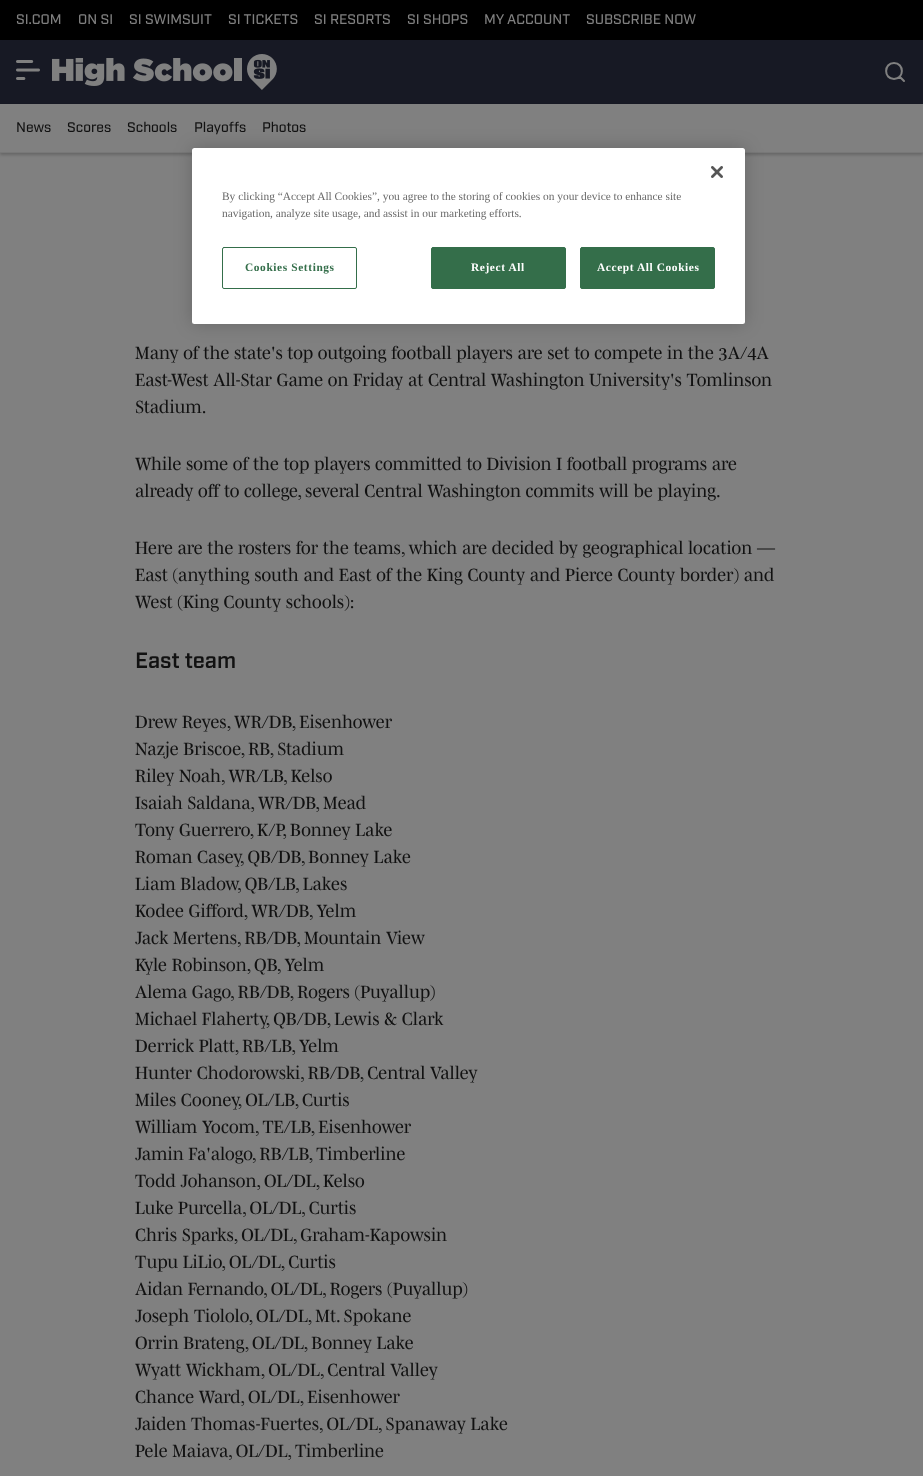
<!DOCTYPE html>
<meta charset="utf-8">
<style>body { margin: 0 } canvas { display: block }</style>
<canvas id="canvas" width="923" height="1476"></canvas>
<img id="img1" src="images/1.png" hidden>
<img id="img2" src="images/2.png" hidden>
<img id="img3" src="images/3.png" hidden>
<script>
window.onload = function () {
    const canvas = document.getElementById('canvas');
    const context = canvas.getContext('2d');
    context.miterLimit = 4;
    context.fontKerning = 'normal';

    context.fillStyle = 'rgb(128, 128, 128)';
    context.fillRect(0, 0, 923, 1476);
    context.fillStyle = 'rgb(0, 0, 0)';
    context.fillRect(0, 0, 923, 40);
    context.fillStyle = 'rgb(23, 25, 36)';
    context.fillRect(0, 40, 923, 64);
    context.drawImage(document.getElementById('img1'), 16, 60, 24, 20);
    context.drawImage(document.getElementById('img2'), 52, 54, 225, 36);
    context.beginPath();
    context.moveTo(894, 79);
    context.bezierCurveTo(904.5, 79, 904.5, 63, 894, 63);
    context.bezierCurveTo(883.5, 63, 883.5, 79, 894, 79);
    context.closePath();
    context.moveTo(904, 81);
    context.lineTo(899.5, 76.5);
    context.strokeStyle = 'rgb(128, 128, 128)';
    context.lineWidth = 2;
    context.lineCap = 'round';
    context.lineJoin = 'round';
    context.stroke();
    context.fillStyle = 'rgba(0, 0, 0, 0.2)';
    context.filter = 'blur(1.5px)';
    context.beginPath();
    context.rect(0, 106, 923, 49);
    context.fill();
    context.filter = 'none';
    context.fillStyle = 'rgb(128, 128, 128)';
    context.fillRect(0, 104, 923, 48);
    context.fillStyle = 'rgb(120, 120, 120)';
    context.fillRect(0, 152, 923, 1);
    context.fillStyle = 'rgba(0, 0, 0, 0.2)';
    context.filter = 'blur(9px)';
    context.beginPath();
    context.roundRect(192, 148, 553, 176, 2.5);
    context.fill();
    context.filter = 'none';
    context.fillStyle = 'rgb(255, 255, 255)';
    context.beginPath();
    context.roundRect(192, 148, 553, 176, 2.5);
    context.fill();
    context.drawImage(document.getElementById('img3'), 711, 166, 12, 12);
    context.beginPath();
    context.roundRect(222.5, 247.5, 134, 41, 1.5);
    context.strokeStyle = 'rgb(52, 110, 74)';
    context.lineWidth = 1;
    context.lineJoin = 'miter';
    context.stroke();
    context.fillStyle = 'rgb(52, 110, 74)';
    context.beginPath();
    context.roundRect(431.5, 247.5, 134, 41, 1.5);
    context.fill();
    context.stroke();
    context.beginPath();
    context.roundRect(580.5, 247.5, 134, 41, 1.5);
    context.fill();
    context.stroke();
    context.font = '500 14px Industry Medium';
    context.fillStyle = 'rgb(128, 128, 128)';
    context.fillText('SI.COM', 16, 24);
    context.fillText('ON SI', 78, 24);
    context.fillText('SI SWIMSUIT', 129, 24);
    context.fillText('SI TICKETS', 228, 24);
    context.fillText('SI RESORTS', 314, 24);
    context.fillText('SI SHOPS', 407, 24);
    context.fillText('MY ACCOUNT', 484, 24);
    context.fillText('SUBSCRIBE NOW', 586, 24);
    context.fillStyle = 'rgb(17, 17, 17)';
    context.fillText('News', 16, 132);
    context.fillText('Scores', 67, 132);
    context.fillText('Schools', 127, 132);
    context.fillText('Playoffs', 194, 132);
    context.fillText('Photos', 262, 132);
    context.font = '18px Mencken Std';
    context.fillText('Many of the state\'s top outgoing football players are set to compete in the 3A/4A', 135, 359);
    context.fillText('East-West All-Star Game on Friday at Central Washington University\'s Tomlinson', 135, 386);
    context.fillText('Stadium.', 135, 413);
    context.fillText('While some of the top players committed to Division I football programs are', 135, 470);
    context.fillText('already off to college, several Central Washington commits will be playing.', 135, 497);
    context.fillText('Here are the rosters for the teams, which are decided by geographical location —', 135, 554);
    context.fillText('East (anything south and East of the King County and Pierce County border) and', 135, 581);
    context.fillText('West (King County schools):', 135, 608);
    context.font = '600 22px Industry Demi';
    context.fillText('East team', 135, 668);
    context.font = '18px Mencken Std';
    context.fillText('Drew Reyes, WR/DB, Eisenhower', 135, 728);
    context.fillText('Nazje Briscoe, RB, Stadium', 135, 755);
    context.fillText('Riley Noah, WR/LB, Kelso', 135, 782);
    context.fillText('Isaiah Saldana, WR/DB, Mead', 135, 809);
    context.fillText('Tony Guerrero, K/P, Bonney Lake', 135, 836);
    context.fillText('Roman Casey, QB/DB, Bonney Lake', 135, 863);
    context.fillText('Liam Bladow, QB/LB, Lakes', 135, 890);
    context.fillText('Kodee Gifford, WR/DB, Yelm', 135, 917);
    context.fillText('Jack Mertens, RB/DB, Mountain View', 135, 944);
    context.fillText('Kyle Robinson, QB, Yelm', 135, 971);
    context.fillText('Alema Gago, RB/DB, Rogers (Puyallup)', 135, 998);
    context.fillText('Michael Flaherty, QB/DB, Lewis & Clark', 135, 1025);
    context.fillText('Derrick Platt, RB/LB, Yelm', 135, 1052);
    context.fillText('Hunter Chodorowski, RB/DB, Central Valley', 135, 1079);
    context.fillText('Miles Cooney, OL/LB, Curtis', 135, 1106);
    context.fillText('William Yocom, TE/LB, Eisenhower', 135, 1133);
    context.fillText('Jamin Fa\'alogo, RB/LB, Timberline', 135, 1160);
    context.fillText('Todd Johanson, OL/DL, Kelso', 135, 1187);
    context.fillText('Luke Purcella, OL/DL, Curtis', 135, 1214);
    context.fillText('Chris Sparks, OL/DL, Graham-Kapowsin', 135, 1241);
    context.fillText('Tupu LiLio, OL/DL, Curtis', 135, 1268);
    context.fillText('Aidan Fernando, OL/DL, Rogers (Puyallup)', 135, 1295);
    context.fillText('Joseph Tiololo, OL/DL, Mt. Spokane', 135, 1322);
    context.fillText('Orrin Brateng, OL/DL, Bonney Lake', 135, 1349);
    context.fillText('Wyatt Wickham, OL/DL, Central Valley', 135, 1376);
    context.fillText('Chance Ward, OL/DL, Eisenhower', 135, 1403);
    context.fillText('Jaiden Thomas-Fuertes, OL/DL, Spanaway Lake', 135, 1430);
    context.fillText('Pele Maiava, OL/DL, Timberline', 135, 1457);
    context.font = '11.4px Liberation Serif';
    context.fillStyle = 'rgb(105, 105, 105)';
    context.fillText('By clicking “Accept All Cookies”, you agree to the storing of cookies on your device to enhance site', 222, 200);
    context.fillText('navigation, analyze site usage, and assist in our marketing efforts.', 222, 217);
    context.letterSpacing = '0.6px';
    context.font = 'bold 11.4px Liberation Serif';
    context.fillStyle = 'rgb(52, 110, 74)';
    context.fillText('Cookies Settings', 245, 271);
    context.fillStyle = 'rgb(255, 255, 255)';
    context.fillText('Reject All', 471, 271);
    context.fillText('Accept All Cookies', 597, 271);
};
</script>
